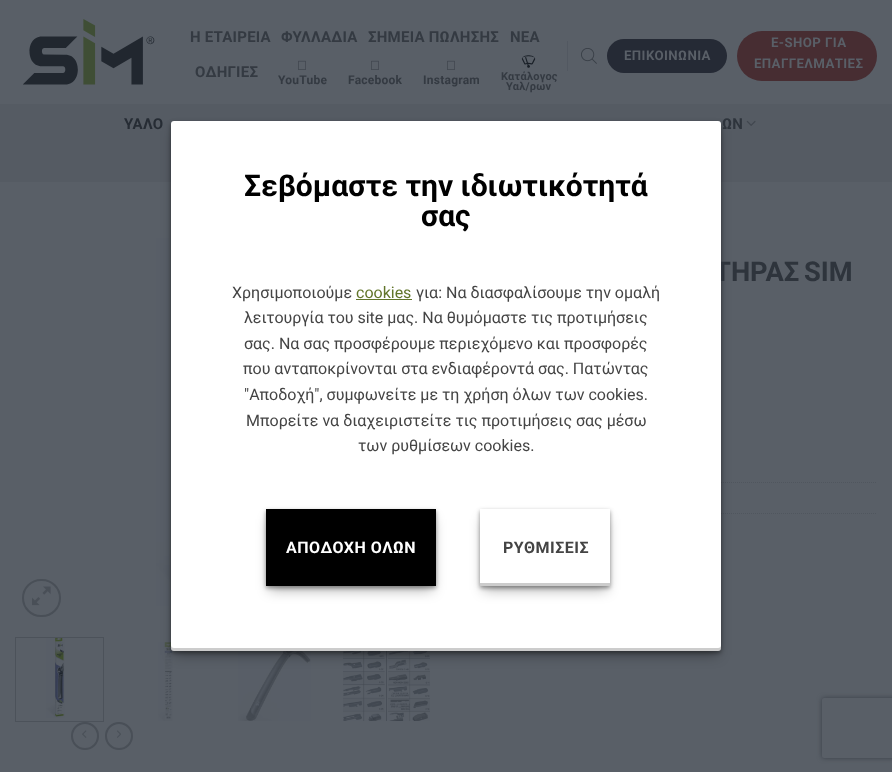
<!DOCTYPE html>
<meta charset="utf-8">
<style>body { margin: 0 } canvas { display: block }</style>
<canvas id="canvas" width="892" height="772"></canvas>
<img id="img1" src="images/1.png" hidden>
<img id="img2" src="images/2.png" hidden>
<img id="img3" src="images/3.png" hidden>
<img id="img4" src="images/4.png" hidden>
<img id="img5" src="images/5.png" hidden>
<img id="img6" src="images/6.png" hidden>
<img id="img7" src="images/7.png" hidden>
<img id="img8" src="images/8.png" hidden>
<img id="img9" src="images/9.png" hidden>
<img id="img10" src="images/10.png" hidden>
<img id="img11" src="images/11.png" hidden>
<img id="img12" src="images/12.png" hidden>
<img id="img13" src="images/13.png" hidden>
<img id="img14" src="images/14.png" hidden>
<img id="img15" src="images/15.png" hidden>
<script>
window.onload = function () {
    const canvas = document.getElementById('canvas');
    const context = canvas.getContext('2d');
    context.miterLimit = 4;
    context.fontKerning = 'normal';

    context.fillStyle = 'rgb(89, 95, 103)';
    context.fillRect(0, 0, 892, 772);
    context.drawImage(document.getElementById('img1'), 23, 19, 132, 66);
    context.drawImage(document.getElementById('img2'), 298, 60, 8, 10);
    context.drawImage(document.getElementById('img2'), 371, 60, 8, 10);
    context.drawImage(document.getElementById('img2'), 447, 60, 8, 10);
    context.drawImage(document.getElementById('img3'), 521, 55, 15, 13);
    context.fillStyle = 'rgb(82, 88, 97)';
    context.fillRect(567, 41, 1, 30);
    context.drawImage(document.getElementById('img4'), 581, 48, 16, 16);
    context.fillStyle = 'rgb(37, 42, 53)';
    context.beginPath();
    context.roundRect(607, 39, 120, 34, 17);
    context.fill();
    context.fillStyle = 'rgb(71, 45, 50)';
    context.beginPath();
    context.roundRect(737, 31, 140, 50, 25);
    context.fill();
    context.fillStyle = 'rgb(85, 91, 99)';
    context.fillRect(0, 104, 892, 78);
    context.drawImage(document.getElementById('img5'), 280, 120, 8, 1);
    context.drawImage(document.getElementById('img6'), 516, 120, 8, 1);
    context.drawImage(document.getElementById('img7'), 746, 120, 10, 6);
    context.beginPath();
    context.roundRect(23, 580, 37, 36, 18);
    context.strokeStyle = 'rgb(73, 79, 87)';
    context.lineWidth = 2;
    context.stroke();
    context.drawImage(document.getElementById('img8'), 32, 586, 19, 20);
    context.drawImage(document.getElementById('img9'), 156, 238, 15, 368);
    context.strokeStyle = 'rgb(76, 82, 90)';
    context.lineWidth = 1;
    context.strokeRect(15.5, 637.5, 88, 84);
    context.drawImage(document.getElementById('img10'), 46, 638, 19, 80);
    context.drawImage(document.getElementById('img11'), 158, 642, 15, 79);
    context.drawImage(document.getElementById('img12'), 238, 651, 73, 70);
    context.drawImage(document.getElementById('img13'), 343, 651, 87, 70);
    context.beginPath();
    context.moveTo(461, 482.5);
    context.lineTo(877, 482.5);
    context.strokeStyle = 'rgb(80, 86, 94)';
    context.setLineDash([1, 1]);
    context.stroke();
    context.beginPath();
    context.moveTo(461, 513.5);
    context.lineTo(877, 513.5);
    context.stroke();
    context.beginPath();
    context.arc(85, 736, 13, 0, 2 * Math.PI);
    context.strokeStyle = 'rgb(73, 79, 87)';
    context.lineWidth = 2;
    context.setLineDash([]);
    context.stroke();
    context.drawImage(document.getElementById('img14'), 82, 730, 5, 8);
    context.beginPath();
    context.arc(119, 736, 13, 0, 2 * Math.PI);
    context.stroke();
    context.drawImage(document.getElementById('img15'), 117, 730, 4, 8);
    context.fillStyle = 'rgba(0, 0, 0, 0.3)';
    context.filter = 'blur(6.5px)';
    context.beginPath();
    context.rect(174, 131, 544, 524);
    context.fill();
    context.filter = 'none';
    context.fillStyle = 'rgba(0, 0, 0, 0.4)';
    context.filter = 'blur(2px)';
    context.beginPath();
    context.roundRect(171, 123, 550, 530, 3);
    context.fill();
    context.filter = 'none';
    context.save();
    context.beginPath();
    context.moveTo(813, 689);
    context.lineTo(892, 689);
    context.lineTo(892, 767);
    context.lineTo(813, 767);
    context.closePath();
    context.moveTo(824, 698);
    context.lineTo(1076, 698);
    context.bezierCurveTo(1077, 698, 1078, 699, 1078, 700);
    context.lineTo(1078, 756);
    context.bezierCurveTo(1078, 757, 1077, 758, 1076, 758);
    context.lineTo(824, 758);
    context.bezierCurveTo(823, 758, 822, 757, 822, 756);
    context.lineTo(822, 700);
    context.bezierCurveTo(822, 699, 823, 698, 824, 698);
    context.closePath();
    context.clip('evenodd');
    context.fillStyle = 'rgb(57, 63, 71)';
    context.filter = 'blur(2.5px)';
    context.beginPath();
    context.roundRect(822, 698, 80, 60, 2);
    context.fill();
    context.filter = 'none';
    context.restore();
    context.letterSpacing = '0.25px';
    context.font = 'bold 15px Roboto';
    context.fillStyle = 'rgb(52, 58, 66)';
    context.fillText('Η ΕΤΑΙΡΕΙΑ', 190, 42);
    context.fillText('ΦΥΛΛΑΔΙΑ', 281, 42);
    context.fillText('ΣΗΜΕΙΑ ΠΩΛΗΣΗΣ', 368, 42);
    context.fillText('ΝΕΑ', 510, 42);
    context.fillText('ΟΔΗΓΙΕΣ', 195, 77);
    context.font = 'bold 12px Roboto';
    context.fillText('YouTube', 278, 84);
    context.fillText('Facebook', 348, 84);
    context.fillText('Instagram', 423, 84);
    context.font = 'bold 11px Roboto';
    context.fillText('Κατάλογος', 501, 80);
    context.fillText('Υαλ/ρων', 506, 90);
    context.letterSpacing = '0.4px';
    context.font = 'bold 13.25px Roboto';
    context.fillStyle = 'rgb(89, 95, 103)';
    context.fillText('ΕΠΙΚΟΙΝΩΝΙΑ', 624, 60);
    context.fillText('E-SHOP ΓΙΑ', 771, 47);
    context.fillText('ΕΠΑΓΓΕΛΜΑΤΙΕΣ', 754, 68);
    context.letterSpacing = '0.25px';
    context.font = 'bold 15px Roboto';
    context.fillStyle = 'rgb(38, 44, 52)';
    context.fillText('ΥΑΛΟ', 124, 129);
    context.fillStyle = 'rgb(46, 52, 60)';
    context.fillText('ΩΝ', 722, 129);
    context.letterSpacing = '0px';
    context.wordSpacing = '-2px';
    context.font = 'bold 27.25px Roboto';
    context.fillText('ΤΗΡΑΣ SIM', 714, 281);
    context.fillStyle = 'rgb(255, 255, 255)';
    context.beginPath();
    context.roundRect(171, 121, 550, 530, 3);
    context.fill();
    context.fillStyle = 'rgba(0, 0, 0, 0.2)';
    context.beginPath();
    context.moveTo(171, 645);
    context.lineTo(171, 648);
    context.bezierCurveTo(171, 650, 172, 651, 174, 651);
    context.lineTo(718, 651);
    context.bezierCurveTo(720, 651, 721, 650, 721, 648);
    context.lineTo(721, 645);
    context.bezierCurveTo(721, 647, 720, 648, 718, 648);
    context.lineTo(174, 648);
    context.bezierCurveTo(172, 648, 171, 647, 171, 645);
    context.closePath();
    context.fill();
    context.wordSpacing = '0px';
    context.font = 'bold 30px Roboto';
    context.fillStyle = 'rgb(0, 0, 0)';
    context.fillText('Σεβόμαστε την ιδιωτικότητά', 244, 196);
    context.fillText('σας', 421, 226);
    context.font = '16px Roboto';
    context.fillStyle = 'rgb(68, 68, 68)';
    context.fillText('Χρησιμοποιούμε', 232, 298);
    context.fillStyle = 'rgb(97, 117, 42)';
    context.fillText('cookies', 356, 298);
    context.fillRect(356, 299, 56, 1);
    context.fillStyle = 'rgb(68, 68, 68)';
    context.fillText('για: Να διασφαλίσουμε την ομαλή', 416, 298);
    context.fillText('λειτουργία του site μας. Να θυμόμαστε τις προτιμήσεις', 244, 323);
    context.fillText('σας. Να σας προσφέρουμε περιεχόμενο και προσφορές', 244, 349);
    context.fillText('που ανταποκρίνονται στα ενδιαφέροντά σας. Πατώντας', 243, 374);
    context.fillText('"Αποδοχή", συμφωνείτε με τη χρήση όλων των cookies.', 244, 400);
    context.fillText('Μπορείτε να διαχειριστείτε τις προτιμήσεις σας μέσω', 246, 426);
    context.fillText('των ρυθμίσεων cookies.', 358, 451);
    context.fillStyle = 'rgba(0, 0, 0, 0.3)';
    context.filter = 'blur(6.5px)';
    context.beginPath();
    context.rect(269, 519, 164, 71);
    context.fill();
    context.filter = 'none';
    context.fillStyle = 'rgba(0, 0, 0, 0.4)';
    context.filter = 'blur(2px)';
    context.beginPath();
    context.rect(266, 511, 170, 77);
    context.fill();
    context.filter = 'none';
    context.fillStyle = 'rgb(0, 0, 0)';
    context.fillRect(266, 509, 170, 77);
    context.letterSpacing = '0.5px';
    context.font = 'bold 16px Roboto';
    context.fillStyle = 'rgb(255, 255, 255)';
    context.fillText('ΑΠΟΔΟΧΗ ΟΛΩΝ', 286, 553);
    context.save();
    context.beginPath();
    context.moveTo(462, 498);
    context.lineTo(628, 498);
    context.lineTo(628, 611);
    context.lineTo(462, 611);
    context.closePath();
    context.moveTo(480, 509);
    context.lineTo(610, 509);
    context.lineTo(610, 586);
    context.lineTo(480, 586);
    context.closePath();
    context.clip('evenodd');
    context.fillStyle = 'rgba(0, 0, 0, 0.3)';
    context.filter = 'blur(6.5px)';
    context.beginPath();
    context.rect(483, 519, 124, 71);
    context.fill();
    context.filter = 'none';
    context.restore();
    context.save();
    context.beginPath();
    context.moveTo(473, 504);
    context.lineTo(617, 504);
    context.lineTo(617, 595);
    context.lineTo(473, 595);
    context.closePath();
    context.moveTo(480, 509);
    context.lineTo(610, 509);
    context.lineTo(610, 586);
    context.lineTo(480, 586);
    context.closePath();
    context.clip('evenodd');
    context.fillStyle = 'rgba(0, 0, 0, 0.4)';
    context.filter = 'blur(2px)';
    context.beginPath();
    context.rect(480, 511, 130, 77);
    context.fill();
    context.filter = 'none';
    context.restore();
    context.fillStyle = 'rgb(204, 204, 204)';
    context.fillRect(480, 583, 130, 3);
    context.fillStyle = 'rgb(68, 68, 68)';
    context.fillText('ΡΥΘΜΙΣΕΙΣ', 503, 553);
};
</script>
